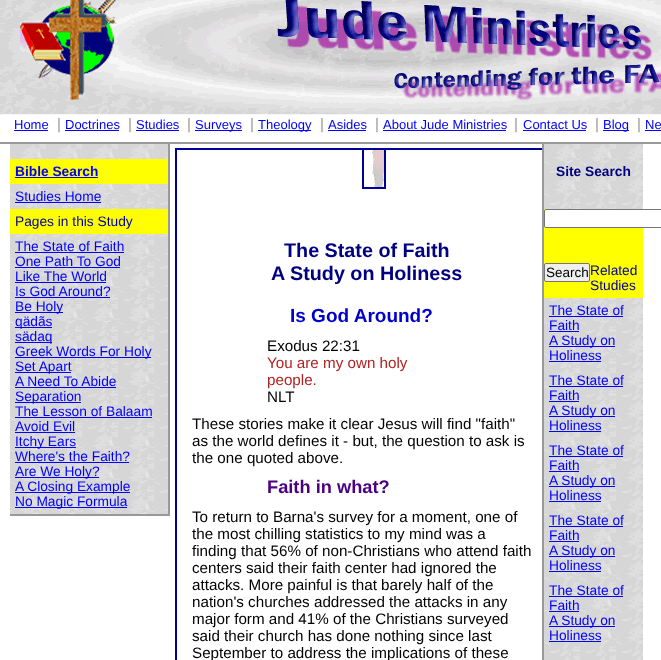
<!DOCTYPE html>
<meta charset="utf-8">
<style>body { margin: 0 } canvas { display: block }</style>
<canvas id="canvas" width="661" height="660"></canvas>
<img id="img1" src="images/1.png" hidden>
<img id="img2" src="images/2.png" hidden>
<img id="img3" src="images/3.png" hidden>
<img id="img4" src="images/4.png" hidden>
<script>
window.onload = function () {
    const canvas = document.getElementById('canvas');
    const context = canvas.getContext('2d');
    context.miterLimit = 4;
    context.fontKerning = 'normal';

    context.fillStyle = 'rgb(255, 255, 255)';
    context.fillRect(0, 0, 661, 660);
    context.fillStyle = 'rgb(153, 153, 153)';
    context.fillRect(0, 142, 661, 2);
    context.drawImage(document.getElementById('img1'), 0, 0, 661, 115);
    context.fillStyle = 'rgb(0, 0, 255)';
    context.fillRect(14, 130, 34, 1);
    context.fillRect(65, 130, 54, 1);
    context.fillRect(136, 130, 43, 1);
    context.fillRect(195, 130, 47, 1);
    context.fillRect(258, 130, 53, 1);
    context.fillRect(328, 130, 38, 1);
    context.fillRect(383, 130, 123, 1);
    context.fillRect(523, 130, 63, 1);
    context.fillRect(603, 130, 26, 1);
    context.fillRect(645, 130, 16, 1);
    context.drawImage(document.getElementById('img2'), 10, 144, 158, 370);
    context.fillStyle = 'rgb(153, 153, 153)';
    context.fillRect(168, 144, 2, 372);
    context.fillRect(10, 514, 160, 2);
    context.fillStyle = 'rgb(255, 255, 0)';
    context.fillRect(10, 159, 158, 25);
    context.fillStyle = 'rgb(0, 0, 255)';
    context.fillRect(15, 177, 83, 1);
    context.fillRect(15, 202, 86, 1);
    context.fillStyle = 'rgb(255, 255, 0)';
    context.fillRect(10, 209, 158, 25);
    context.fillStyle = 'rgb(0, 0, 255)';
    context.fillRect(15, 252, 109, 1);
    context.fillRect(15, 267, 105, 1);
    context.fillRect(15, 282, 91, 1);
    context.fillRect(15, 297, 95, 1);
    context.fillRect(15, 312, 48, 1);
    context.fillRect(15, 327, 30, 1);
    context.fillRect(45, 327, 7, 1);
    context.fillRect(15, 342, 37, 1);
    context.fillRect(15, 357, 136, 1);
    context.fillRect(15, 372, 56, 1);
    context.fillRect(15, 387, 101, 1);
    context.fillRect(15, 402, 66, 1);
    context.fillRect(15, 417, 137, 1);
    context.fillRect(15, 432, 60, 1);
    context.fillRect(15, 447, 61, 1);
    context.fillRect(15, 462, 114, 1);
    context.fillRect(15, 477, 84, 1);
    context.fillRect(15, 492, 115, 1);
    context.fillRect(15, 507, 112, 1);
    context.strokeStyle = 'rgb(0, 0, 153)';
    context.lineWidth = 2;
    context.strokeRect(176, 149, 372, 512);
    context.drawImage(document.getElementById('img3'), 371, 150, 13, 37);
    context.strokeRect(363, 149, 22, 39);
    context.drawImage(document.getElementById('img4'), 544, 144, 99, 516);
    context.fillStyle = 'rgb(153, 153, 153)';
    context.fillRect(542, 144, 2, 516);
    context.fillStyle = 'rgb(255, 255, 0)';
    context.fillRect(544, 209, 99, 89);
    context.fillStyle = 'rgb(255, 255, 255)';
    context.beginPath();
    context.roundRect(544.5, 209.5, 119, 18, 1.5);
    context.fill();
    context.strokeStyle = 'rgb(118, 118, 118)';
    context.lineWidth = 1;
    context.stroke();
    context.fillStyle = 'rgb(239, 239, 239)';
    context.beginPath();
    context.roundRect(544.5, 263.5, 45, 18, 1.5);
    context.fill();
    context.stroke();
    context.fillStyle = 'rgb(0, 0, 255)';
    context.fillRect(549, 316, 74, 1);
    context.fillRect(549, 331, 30, 1);
    context.fillRect(549, 346, 66, 1);
    context.fillRect(549, 361, 52, 1);
    context.fillRect(549, 386, 74, 1);
    context.fillRect(549, 401, 30, 1);
    context.fillRect(549, 416, 66, 1);
    context.fillRect(549, 431, 52, 1);
    context.fillRect(549, 456, 74, 1);
    context.fillRect(549, 471, 30, 1);
    context.fillRect(549, 486, 66, 1);
    context.fillRect(549, 501, 52, 1);
    context.fillRect(549, 526, 74, 1);
    context.fillRect(549, 541, 30, 1);
    context.fillRect(549, 556, 66, 1);
    context.fillRect(549, 571, 52, 1);
    context.fillRect(549, 596, 74, 1);
    context.fillRect(549, 611, 30, 1);
    context.fillRect(549, 626, 66, 1);
    context.fillRect(549, 641, 52, 1);
    context.font = '13px Liberation Sans';
    context.fillText('Home', 14, 129);
    context.font = '15.2px Liberation Sans';
    context.fillStyle = 'rgb(153, 153, 153)';
    context.fillText('|', 57, 129);
    context.font = '13px Liberation Sans';
    context.fillStyle = 'rgb(0, 0, 255)';
    context.fillText('Doctrines', 65, 129);
    context.font = '15.2px Liberation Sans';
    context.fillStyle = 'rgb(153, 153, 153)';
    context.fillText('|', 128, 129);
    context.font = '13px Liberation Sans';
    context.fillStyle = 'rgb(0, 0, 255)';
    context.fillText('Studies', 136, 129);
    context.font = '15.2px Liberation Sans';
    context.fillStyle = 'rgb(153, 153, 153)';
    context.fillText('|', 187, 129);
    context.font = '13px Liberation Sans';
    context.fillStyle = 'rgb(0, 0, 255)';
    context.fillText('Surveys', 195, 129);
    context.font = '15.2px Liberation Sans';
    context.fillStyle = 'rgb(153, 153, 153)';
    context.fillText('|', 250, 129);
    context.font = '13px Liberation Sans';
    context.fillStyle = 'rgb(0, 0, 255)';
    context.fillText('Theology', 258, 129);
    context.font = '15.2px Liberation Sans';
    context.fillStyle = 'rgb(153, 153, 153)';
    context.fillText('|', 320, 129);
    context.font = '13px Liberation Sans';
    context.fillStyle = 'rgb(0, 0, 255)';
    context.fillText('Asides', 328, 129);
    context.font = '15.2px Liberation Sans';
    context.fillStyle = 'rgb(153, 153, 153)';
    context.fillText('|', 375, 129);
    context.font = '13px Liberation Sans';
    context.fillStyle = 'rgb(0, 0, 255)';
    context.fillText('About Jude Ministries', 383, 129);
    context.font = '15.2px Liberation Sans';
    context.fillStyle = 'rgb(153, 153, 153)';
    context.fillText('|', 514, 129);
    context.font = '13px Liberation Sans';
    context.fillStyle = 'rgb(0, 0, 255)';
    context.fillText('Contact Us', 523, 129);
    context.font = '15.2px Liberation Sans';
    context.fillStyle = 'rgb(153, 153, 153)';
    context.fillText('|', 595, 129);
    context.font = '13px Liberation Sans';
    context.fillStyle = 'rgb(0, 0, 255)';
    context.fillText('Blog', 603, 129);
    context.font = '15.2px Liberation Sans';
    context.fillStyle = 'rgb(153, 153, 153)';
    context.fillText('|', 637, 129);
    context.font = '13px Liberation Sans';
    context.fillStyle = 'rgb(0, 0, 255)';
    context.fillText('Ne', 645, 129);
    context.font = 'bold 13.75px Liberation Sans';
    context.fillText('Bible Search', 15, 176);
    context.font = '13.75px Liberation Sans';
    context.fillText('Studies Home', 15, 201);
    context.fillStyle = 'rgb(0, 0, 153)';
    context.fillText('Pages in this Study', 15, 226);
    context.fillStyle = 'rgb(0, 0, 255)';
    context.fillText('The State of Faith', 15, 251);
    context.fillText('One Path To God', 15, 266);
    context.fillText('Like The World', 15, 281);
    context.fillText('Is God Around?', 15, 296);
    context.fillText('Be Holy', 15, 311);
    context.fillText('qädãs', 15, 326);
    context.fillText('sädaq', 15, 341);
    context.fillText('Greek Words For Holy', 15, 356);
    context.fillText('Set Apart', 15, 371);
    context.fillText('A Need To Abide', 15, 386);
    context.fillText('Separation', 15, 401);
    context.fillText('The Lesson of Balaam', 15, 416);
    context.fillText('Avoid Evil', 15, 431);
    context.fillText('Itchy Ears', 15, 446);
    context.fillText('Where\'s the Faith?', 15, 461);
    context.fillText('Are We Holy?', 15, 476);
    context.fillText('A Closing Example', 15, 491);
    context.fillText('No Magic Formula', 15, 506);
    context.font = 'bold 19.75px Liberation Sans';
    context.fillStyle = 'rgb(0, 0, 128)';
    context.fillText('The State of Faith', 284, 257);
    context.fillText('A Study on Holiness', 271, 280);
    context.font = 'bold 19px Liberation Sans';
    context.fillStyle = 'rgb(0, 0, 205)';
    context.fillText('Is God Around?', 290, 322);
    context.font = '15.2px Liberation Sans';
    context.fillStyle = 'rgb(0, 0, 0)';
    context.fillText('Exodus 22:31', 267, 351);
    context.fillStyle = 'rgb(178, 34, 34)';
    context.fillText('You are my own holy', 267, 368);
    context.fillText('people.', 267, 385);
    context.fillStyle = 'rgb(0, 0, 0)';
    context.fillText('NLT', 267, 402);
    context.fillText('These stories make it clear Jesus will find "faith"', 192, 429);
    context.fillText('as the world defines it - but, the question to ask is', 192, 446);
    context.fillText('the one quoted above.', 192, 463);
    context.font = 'bold 18.25px Liberation Sans';
    context.fillStyle = 'rgb(75, 0, 130)';
    context.fillText('Faith in what?', 267, 493);
    context.font = '15.2px Liberation Sans';
    context.fillStyle = 'rgb(0, 0, 0)';
    context.fillText('To return to Barna\'s survey for a moment, one of', 192, 522);
    context.fillText('the most chilling statistics to my mind was a', 192, 539);
    context.fillText('finding that 56% of non-Christians who attend faith', 192, 556);
    context.fillText('centers said their faith center had ignored the', 192, 573);
    context.fillText('attacks. More painful is that barely half of the', 192, 590);
    context.fillText('nation\'s churches addressed the attacks in any', 192, 607);
    context.fillText('major form and 41% of the Christians surveyed', 192, 624);
    context.fillText('said their church has done nothing since last', 192, 641);
    context.fillText('September to address the implications of these', 192, 658);
    context.font = 'bold 13.75px Liberation Sans';
    context.fillStyle = 'rgb(0, 0, 128)';
    context.fillText('Site Search', 556, 176);
    context.font = '13.5px Liberation Sans';
    context.fillStyle = 'rgb(0, 0, 0)';
    context.fillText('Search', 546, 277);
    context.font = '13.75px Liberation Sans';
    context.fillStyle = 'rgb(0, 0, 153)';
    context.fillText('Related', 590, 275);
    context.fillText('Studies', 590, 290);
    context.fillStyle = 'rgb(0, 0, 255)';
    context.fillText('The State of', 549, 315);
    context.fillText('Faith', 549, 330);
    context.fillText('A Study on', 549, 345);
    context.fillText('Holiness', 549, 360);
    context.fillText('The State of', 549, 385);
    context.fillText('Faith', 549, 400);
    context.fillText('A Study on', 549, 415);
    context.fillText('Holiness', 549, 430);
    context.fillText('The State of', 549, 455);
    context.fillText('Faith', 549, 470);
    context.fillText('A Study on', 549, 485);
    context.fillText('Holiness', 549, 500);
    context.fillText('The State of', 549, 525);
    context.fillText('Faith', 549, 540);
    context.fillText('A Study on', 549, 555);
    context.fillText('Holiness', 549, 570);
    context.fillText('The State of', 549, 595);
    context.fillText('Faith', 549, 610);
    context.fillText('A Study on', 549, 625);
    context.fillText('Holiness', 549, 640);
};
</script>
